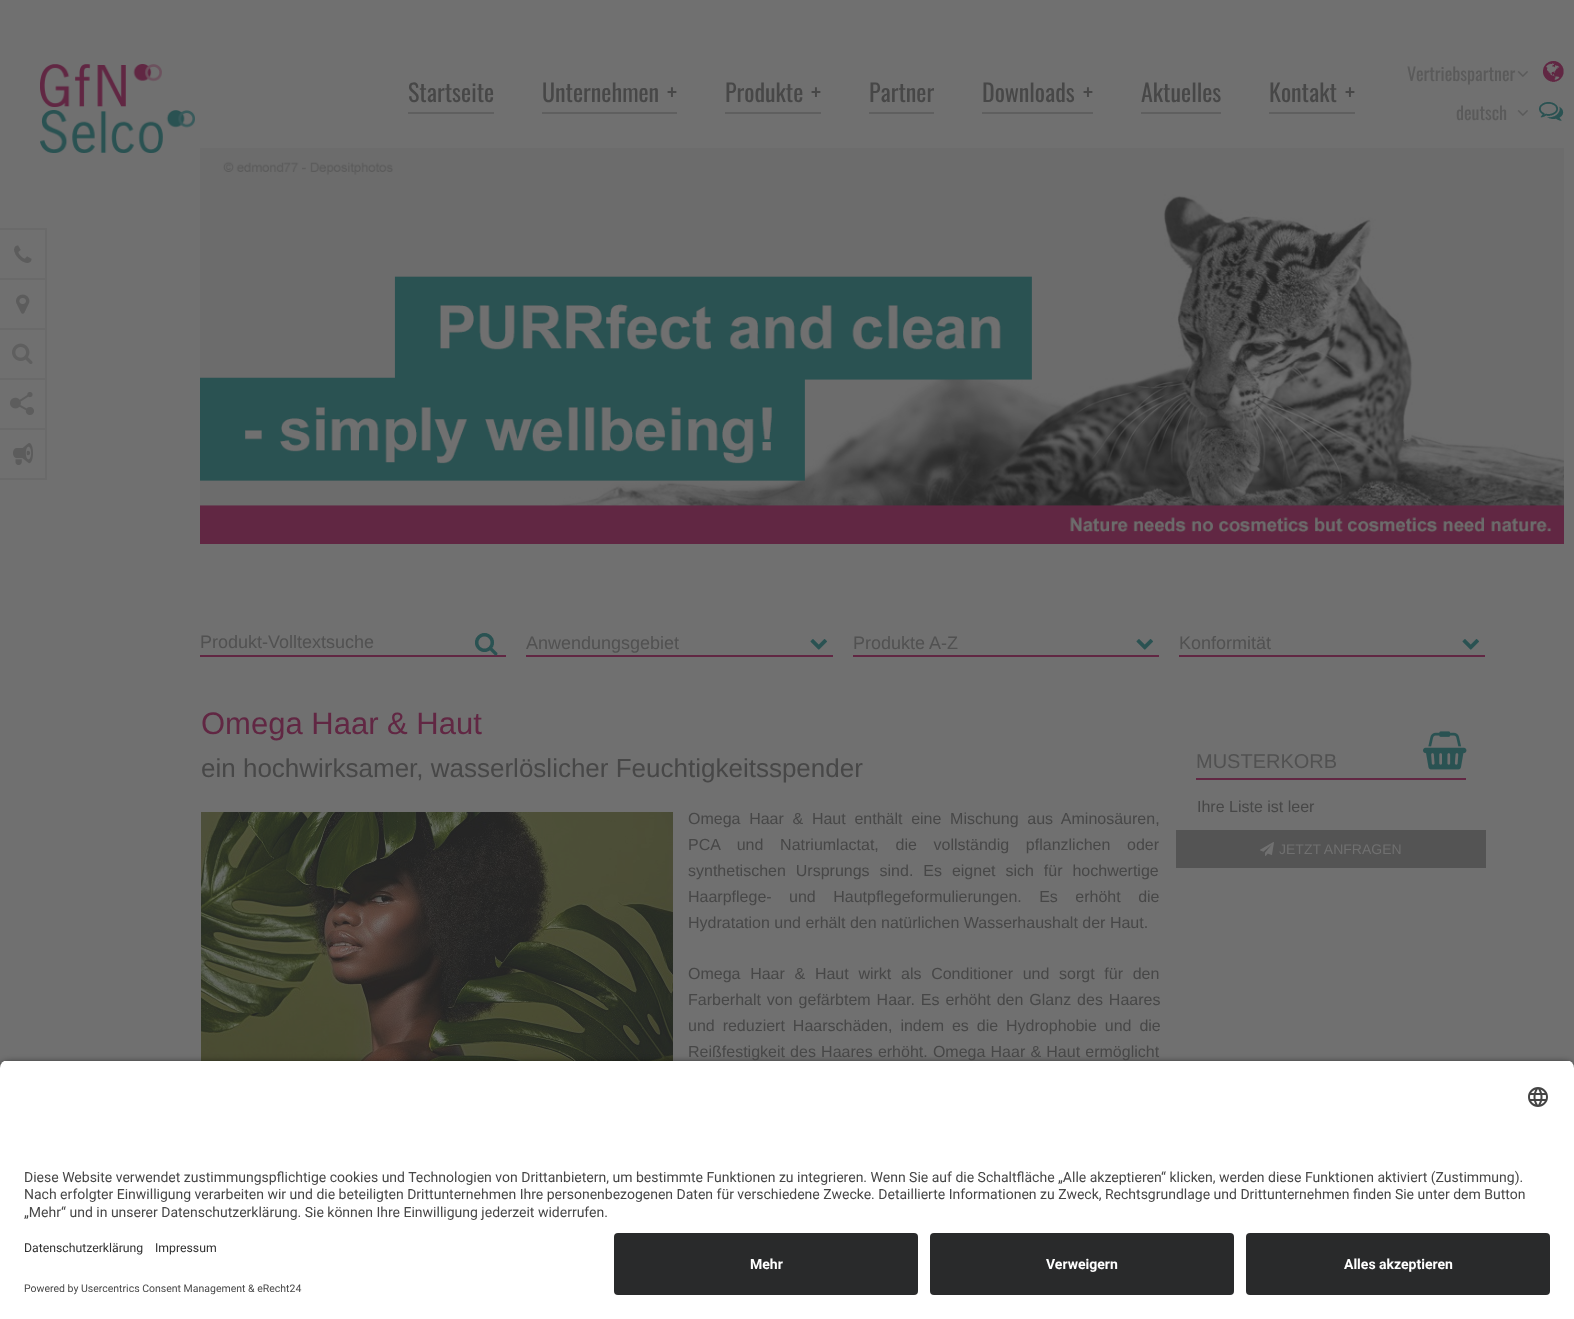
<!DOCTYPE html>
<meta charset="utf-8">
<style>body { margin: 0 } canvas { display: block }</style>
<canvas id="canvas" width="1574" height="1319"></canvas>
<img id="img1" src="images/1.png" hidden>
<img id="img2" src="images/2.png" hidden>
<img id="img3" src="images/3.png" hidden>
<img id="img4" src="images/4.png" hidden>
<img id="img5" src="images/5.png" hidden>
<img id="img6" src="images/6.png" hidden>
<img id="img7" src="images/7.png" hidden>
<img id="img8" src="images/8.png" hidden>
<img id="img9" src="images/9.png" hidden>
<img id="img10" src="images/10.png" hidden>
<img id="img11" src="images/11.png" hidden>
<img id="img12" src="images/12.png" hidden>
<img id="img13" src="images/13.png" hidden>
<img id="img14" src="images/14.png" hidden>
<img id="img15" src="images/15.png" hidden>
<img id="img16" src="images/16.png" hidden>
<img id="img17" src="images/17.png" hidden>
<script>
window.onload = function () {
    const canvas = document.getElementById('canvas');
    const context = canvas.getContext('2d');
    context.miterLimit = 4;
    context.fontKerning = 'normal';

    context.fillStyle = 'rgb(112, 112, 112)';
    context.fillRect(0, 0, 1574, 1319);
    context.drawImage(document.getElementById('img1'), 40, 64, 122, 43);
    context.drawImage(document.getElementById('img2'), 40, 110, 155, 43);
    context.fillStyle = 'rgb(95, 95, 95)';
    context.fillRect(408, 112, 86, 2);
    context.fillRect(542, 112, 135, 2);
    context.fillRect(725, 112, 96, 2);
    context.fillRect(869, 112, 65, 2);
    context.fillRect(982, 112, 111, 2);
    context.fillRect(1141, 112, 80, 2);
    context.fillRect(1269, 112, 86, 2);
    context.drawImage(document.getElementById('img3'), 1517, 71, 11, 6);
    context.drawImage(document.getElementById('img4'), 1543, 61, 21, 21);
    context.drawImage(document.getElementById('img3'), 1517, 110, 11, 6);
    context.drawImage(document.getElementById('img5'), 1539, 102, 25, 19);
    context.fillStyle = 'rgb(106, 106, 106)';
    context.fillRect(0, 228, 47, 2);
    context.fillRect(45, 228, 2, 252);
    context.fillRect(0, 278, 47, 2);
    context.drawImage(document.getElementById('img6'), 14, 245, 18, 18);
    context.fillRect(0, 328, 47, 2);
    context.drawImage(document.getElementById('img7'), 16, 294, 14, 20);
    context.fillRect(0, 378, 47, 2);
    context.drawImage(document.getElementById('img8'), 12, 343, 21, 21);
    context.fillRect(0, 428, 47, 2);
    context.drawImage(document.getElementById('img9'), 10, 392, 24, 23);
    context.fillRect(0, 478, 47, 2);
    context.drawImage(document.getElementById('img10'), 13, 443, 20, 22);
    context.drawImage(document.getElementById('img11'), 200, 148, 1364, 396);
    context.fillStyle = 'rgb(97, 39, 67)';
    context.fillRect(200, 655, 306, 2);
    context.drawImage(document.getElementById('img12'), 475, 633, 23, 23);
    context.fillRect(526, 655, 307, 2);
    context.drawImage(document.getElementById('img13'), 810, 639, 17, 11);
    context.fillRect(853, 655, 306, 2);
    context.drawImage(document.getElementById('img13'), 1136, 639, 17, 11);
    context.fillRect(1179, 655, 306, 2);
    context.drawImage(document.getElementById('img13'), 1462, 639, 17, 11);
    context.drawImage(document.getElementById('img14'), 201, 812, 472, 249);
    context.fillRect(1196, 778, 270, 2);
    context.drawImage(document.getElementById('img15'), 1423, 731, 44, 39);
    context.fillStyle = 'rgb(84, 84, 84)';
    context.fillRect(1176, 830, 310, 38);
    context.drawImage(document.getElementById('img16'), 1260, 842, 14, 14);
    context.fillStyle = 'rgba(0, 0, 0, 0.8)';
    context.filter = 'blur(3.5px)';
    context.beginPath();
    context.roundRect(0, 1063, 1574, 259, 8);
    context.fill();
    context.filter = 'none';
    context.save();
    context.beginPath();
    context.roundRect(0, 1060, 1574, 165, [8, 8, 0, 0]);
    context.clip();
    context.fillStyle = 'rgb(255, 255, 255)';
    context.fillRect(0, 1061, 1574, 164);
    context.restore();
    context.drawImage(document.getElementById('img17'), 1528, 1087, 20, 20);
    context.fillStyle = 'rgb(255, 255, 255)';
    context.fillRect(0, 1225, 1574, 94);
    context.fillStyle = 'rgb(41, 42, 43)';
    context.beginPath();
    context.roundRect(614, 1233, 304, 62, 4);
    context.fill();
    context.beginPath();
    context.roundRect(930, 1233, 304, 62, 4);
    context.fill();
    context.beginPath();
    context.roundRect(1246, 1233, 304, 62, 4);
    context.fill();
    context.font = '24px Oswald';
    context.fillStyle = 'rgb(71, 71, 71)';
    context.fillText('Startseite', 408, 102);
    context.fillText('Unternehmen', 542, 102);
    context.fillText('+', 667, 102);
    context.fillText('Produkte', 725, 102);
    context.fillText('+', 811, 102);
    context.fillText('Partner', 869, 102);
    context.fillText('Downloads', 982, 102);
    context.fillText('+', 1083, 102);
    context.fillText('Aktuelles', 1141, 102);
    context.fillText('Kontakt', 1269, 102);
    context.fillText('+', 1345, 102);
    context.font = '18px Oswald';
    context.fillStyle = 'rgb(90, 90, 90)';
    context.fillText('Vertriebspartner', 1407, 81);
    context.fillText('deutsch', 1456, 120);
    context.font = '18px Liberation Sans';
    context.fillStyle = 'rgb(81, 81, 81)';
    context.fillText('Produkt-Volltextsuche', 200, 648);
    context.fillText('Anwendungsgebiet', 526, 649);
    context.fillText('Produkte A-Z', 853, 649);
    context.fillText('Konformität', 1179, 649);
    context.font = '31px Liberation Sans';
    context.fillStyle = 'rgb(97, 39, 67)';
    context.fillText('Omega Haar & Haut', 201, 734);
    context.font = '26px Liberation Sans';
    context.fillStyle = 'rgb(71, 71, 71)';
    context.fillText('ein hochwirksamer, wasserlöslicher Feuchtigkeitsspender', 201, 777);
    context.wordSpacing = '4.25px';
    context.font = '16px Liberation Sans';
    context.fillText('Omega Haar & Haut enthält eine Mischung aus Aminosäuren,', 688, 824);
    context.wordSpacing = '12.25px';
    context.fillText('PCA und Natriumlactat, die vollständig pflanzlichen oder', 688, 850);
    context.wordSpacing = '5.5px';
    context.fillText('synthetischen Ursprungs sind. Es eignet sich für hochwertige', 688, 876);
    context.wordSpacing = '13px';
    context.fillText('Haarpflege- und Hautpflegeformulierungen. Es erhöht die', 688, 902);
    context.wordSpacing = '0px';
    context.fillText('Hydratation und erhält den natürlichen Wasserhaushalt der Haut.', 688, 928);
    context.wordSpacing = '5.25px';
    context.fillText('Omega Haar & Haut wirkt als Conditioner und sorgt für den', 688, 979);
    context.wordSpacing = '1.5px';
    context.fillText('Farberhalt von gefärbtem Haar. Es erhöht den Glanz des Haares', 688, 1005);
    context.wordSpacing = '3.5px';
    context.fillText('und reduziert Haarschäden, indem es die Hydrophobie und die', 688, 1031);
    context.wordSpacing = '0.75px';
    context.fillText('Reißfestigkeit des Haares erhöht. Omega Haar & Haut ermöglicht', 688, 1057);
    context.wordSpacing = '0px';
    context.font = '20px Liberation Sans';
    context.fillStyle = 'rgb(81, 81, 81)';
    context.fillText('MUSTERKORB', 1196, 768);
    context.font = '16px Liberation Sans';
    context.fillStyle = 'rgb(71, 71, 71)';
    context.fillText('Ihre Liste ist leer', 1197, 812);
    context.font = '14px Liberation Sans';
    context.fillStyle = 'rgb(112, 112, 112)';
    context.fillText('JETZT ANFRAGEN', 1279, 854);
    context.font = '14px Roboto';
    context.fillStyle = 'rgb(71, 71, 71)';
    context.fillText('Diese Website verwendet zustimmungspflichtige cookies und Technologien von Drittanbietern, um bestimmte Funktionen zu integrieren. Wenn Sie auf die Schaltfläche „Alle akzeptieren“ klicken, werden diese Funktionen aktiviert (Zustimmung).', 24, 1182);
    context.fillText('Nach erfolgter Einwilligung verarbeiten wir und die beteiligten Drittunternehmen Ihre personenbezogenen Daten für verschiedene Zwecke. Detaillierte Informationen zu Zweck, Rechtsgrundlage und Drittunternehmen finden Sie unter dem Button', 24, 1199);
    context.fillText('„Mehr“ und in unserer Datenschutzerklärung. Sie können Ihre Einwilligung jederzeit widerrufen.', 24, 1217);
    context.font = '12.25px Roboto';
    context.fillStyle = 'rgb(48, 48, 48)';
    context.fillText('Datenschutzerklärung', 24, 1252);
    context.fillText('Impressum', 155, 1252);
    context.font = '10.5px Roboto';
    context.fillStyle = 'rgb(71, 71, 71)';
    context.fillText('Powered by Usercentrics Consent Management & eRecht24', 24, 1292);
    context.font = 'bold 14px Roboto';
    context.fillStyle = 'rgb(255, 255, 255)';
    context.fillText('Mehr', 750, 1269);
    context.fillText('Verweigern', 1046, 1269);
    context.fillText('Alles akzeptieren', 1344, 1269);
};
</script>
